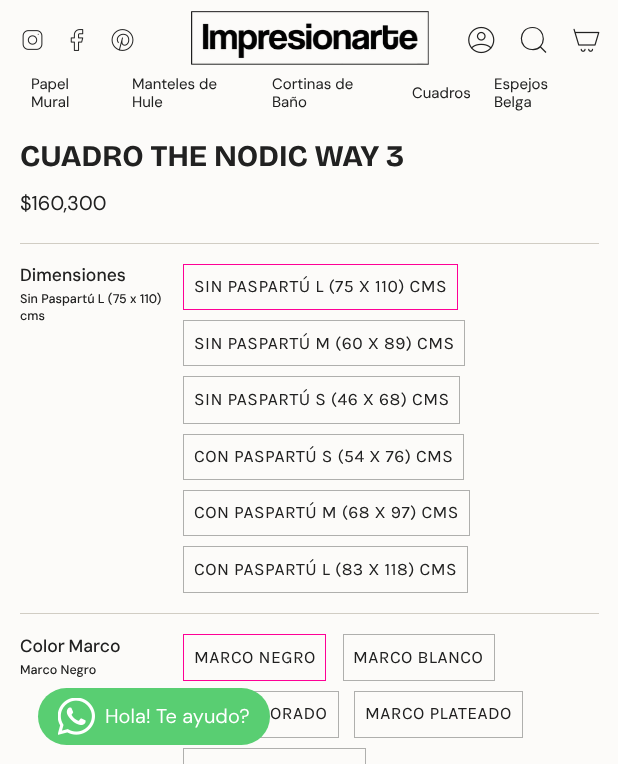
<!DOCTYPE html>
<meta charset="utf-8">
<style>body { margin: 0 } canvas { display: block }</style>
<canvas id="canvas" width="618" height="764"></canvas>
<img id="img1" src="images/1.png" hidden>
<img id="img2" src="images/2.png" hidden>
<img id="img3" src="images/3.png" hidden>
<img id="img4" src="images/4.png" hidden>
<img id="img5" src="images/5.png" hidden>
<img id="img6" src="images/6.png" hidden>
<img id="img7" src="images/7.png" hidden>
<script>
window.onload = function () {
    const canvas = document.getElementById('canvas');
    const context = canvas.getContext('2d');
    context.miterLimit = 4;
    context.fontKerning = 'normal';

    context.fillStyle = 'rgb(252, 251, 249)';
    context.fillRect(0, 0, 618, 764);
    context.drawImage(document.getElementById('img1'), 22, 30, 21, 20);
    context.drawImage(document.getElementById('img2'), 70, 29, 14, 22);
    context.drawImage(document.getElementById('img3'), 111, 29, 23, 22);
    context.drawImage(document.getElementById('img4'), 191, 11, 238, 54);
    context.drawImage(document.getElementById('img5'), 468, 26, 27, 28);
    context.beginPath();
    context.moveTo(532.5, 27.5);
    context.bezierCurveTo(547, 27.5, 547, 50.5, 532, 49.5);
    context.bezierCurveTo(517.5, 49, 518, 27.5, 532.5, 27.5);
    context.closePath();
    context.moveTo(540, 46.5);
    context.lineTo(546, 52.5);
    context.strokeStyle = 'rgb(33, 33, 33)';
    context.lineWidth = 1.2;
    context.stroke();
    context.drawImage(document.getElementById('img6'), 573, 28, 27, 24);
    context.fillStyle = 'rgb(209, 205, 196)';
    context.fillRect(20, 243, 579, 1);
    context.fillRect(20, 613, 579, 1);
    context.strokeStyle = 'rgb(254, 0, 150)';
    context.lineWidth = 1;
    context.strokeRect(183.5, 264.5, 274, 45);
    context.strokeStyle = 'rgb(175, 175, 173)';
    context.strokeRect(183.5, 320.5, 281, 45);
    context.strokeRect(183.5, 376.5, 276, 47);
    context.strokeRect(183.5, 434.5, 280, 45);
    context.strokeRect(183.5, 490.5, 286, 45);
    context.strokeRect(183.5, 546.5, 284, 46);
    context.strokeStyle = 'rgb(254, 0, 150)';
    context.strokeRect(183.5, 634.5, 142, 46);
    context.strokeStyle = 'rgb(175, 175, 173)';
    context.strokeRect(343.5, 634.5, 151, 46);
    context.strokeRect(183.5, 691.5, 155, 46);
    context.strokeRect(354.5, 691.5, 168, 46);
    context.strokeRect(183.5, 748.5, 182, 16);
    context.fillStyle = 'rgb(89, 206, 114)';
    context.beginPath();
    context.roundRect(38, 688, 232, 57, 28.5);
    context.fill();
    context.drawImage(document.getElementById('img7'), 58, 698, 37, 37);
    context.font = '15px "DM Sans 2"';
    context.fillStyle = 'rgb(33, 33, 33)';
    context.fillText('Papel', 31, 89);
    context.fillText('Mural', 31, 107);
    context.fillText('Manteles de', 132, 89);
    context.fillText('Hule', 132, 107);
    context.fillText('Cortinas de', 272, 89);
    context.fillText('Baño', 272, 107);
    context.fillText('Cuadros', 412, 98);
    context.fillText('Espejos', 494, 89);
    context.fillText('Belga', 494, 107);
    context.font = 'bold 30px Bricolage Grotesque';
    context.fillText('CUADRO THE NODIC WAY 3', 20, 166);
    context.font = '20px DM Sans';
    context.fillText('$160,300', 20, 210);
    context.font = '500 17.5px DM Sans';
    context.fillText('Dimensiones', 20, 281);
    context.font = '500 12.5px DM Sans';
    context.fillText('Sin Paspartú L (75 x 110)', 20, 303);
    context.fillText('cms', 20, 320);
    context.letterSpacing = '0.45px';
    context.font = '17.5px Karla';
    context.fillText('SIN PASPARTÚ L (75 X 110) CMS', 194, 292);
    context.fillText('SIN PASPARTÚ M (60 X 89) CMS', 194, 349);
    context.fillText('SIN PASPARTÚ S (46 X 68) CMS', 194, 405);
    context.fillText('CON PASPARTÚ S (54 X 76) CMS', 194, 462);
    context.fillText('CON PASPARTÚ M (68 X 97) CMS', 194, 518);
    context.fillText('CON PASPARTÚ L (83 X 118) CMS', 194, 575);
    context.letterSpacing = '0px';
    context.wordSpacing = '-1px';
    context.font = '500 17.5px DM Sans';
    context.fillText('Color Marco', 20, 652);
    context.wordSpacing = '0px';
    context.font = '500 12.5px DM Sans';
    context.fillText('Marco Negro', 20, 674);
    context.letterSpacing = '0.45px';
    context.font = '17.5px Karla';
    context.fillText('MARCO NEGRO', 194, 663);
    context.fillText('MARCO BLANCO', 353, 663);
    context.fillText('ORADO', 270, 719);
    context.fillText('MARCO PLATEADO', 365, 719);
    context.letterSpacing = '0px';
    context.font = '20px DM Sans';
    context.fillStyle = 'rgb(255, 255, 255)';
    context.fillText('Hola! Te ayudo?', 105, 723);
};
</script>
